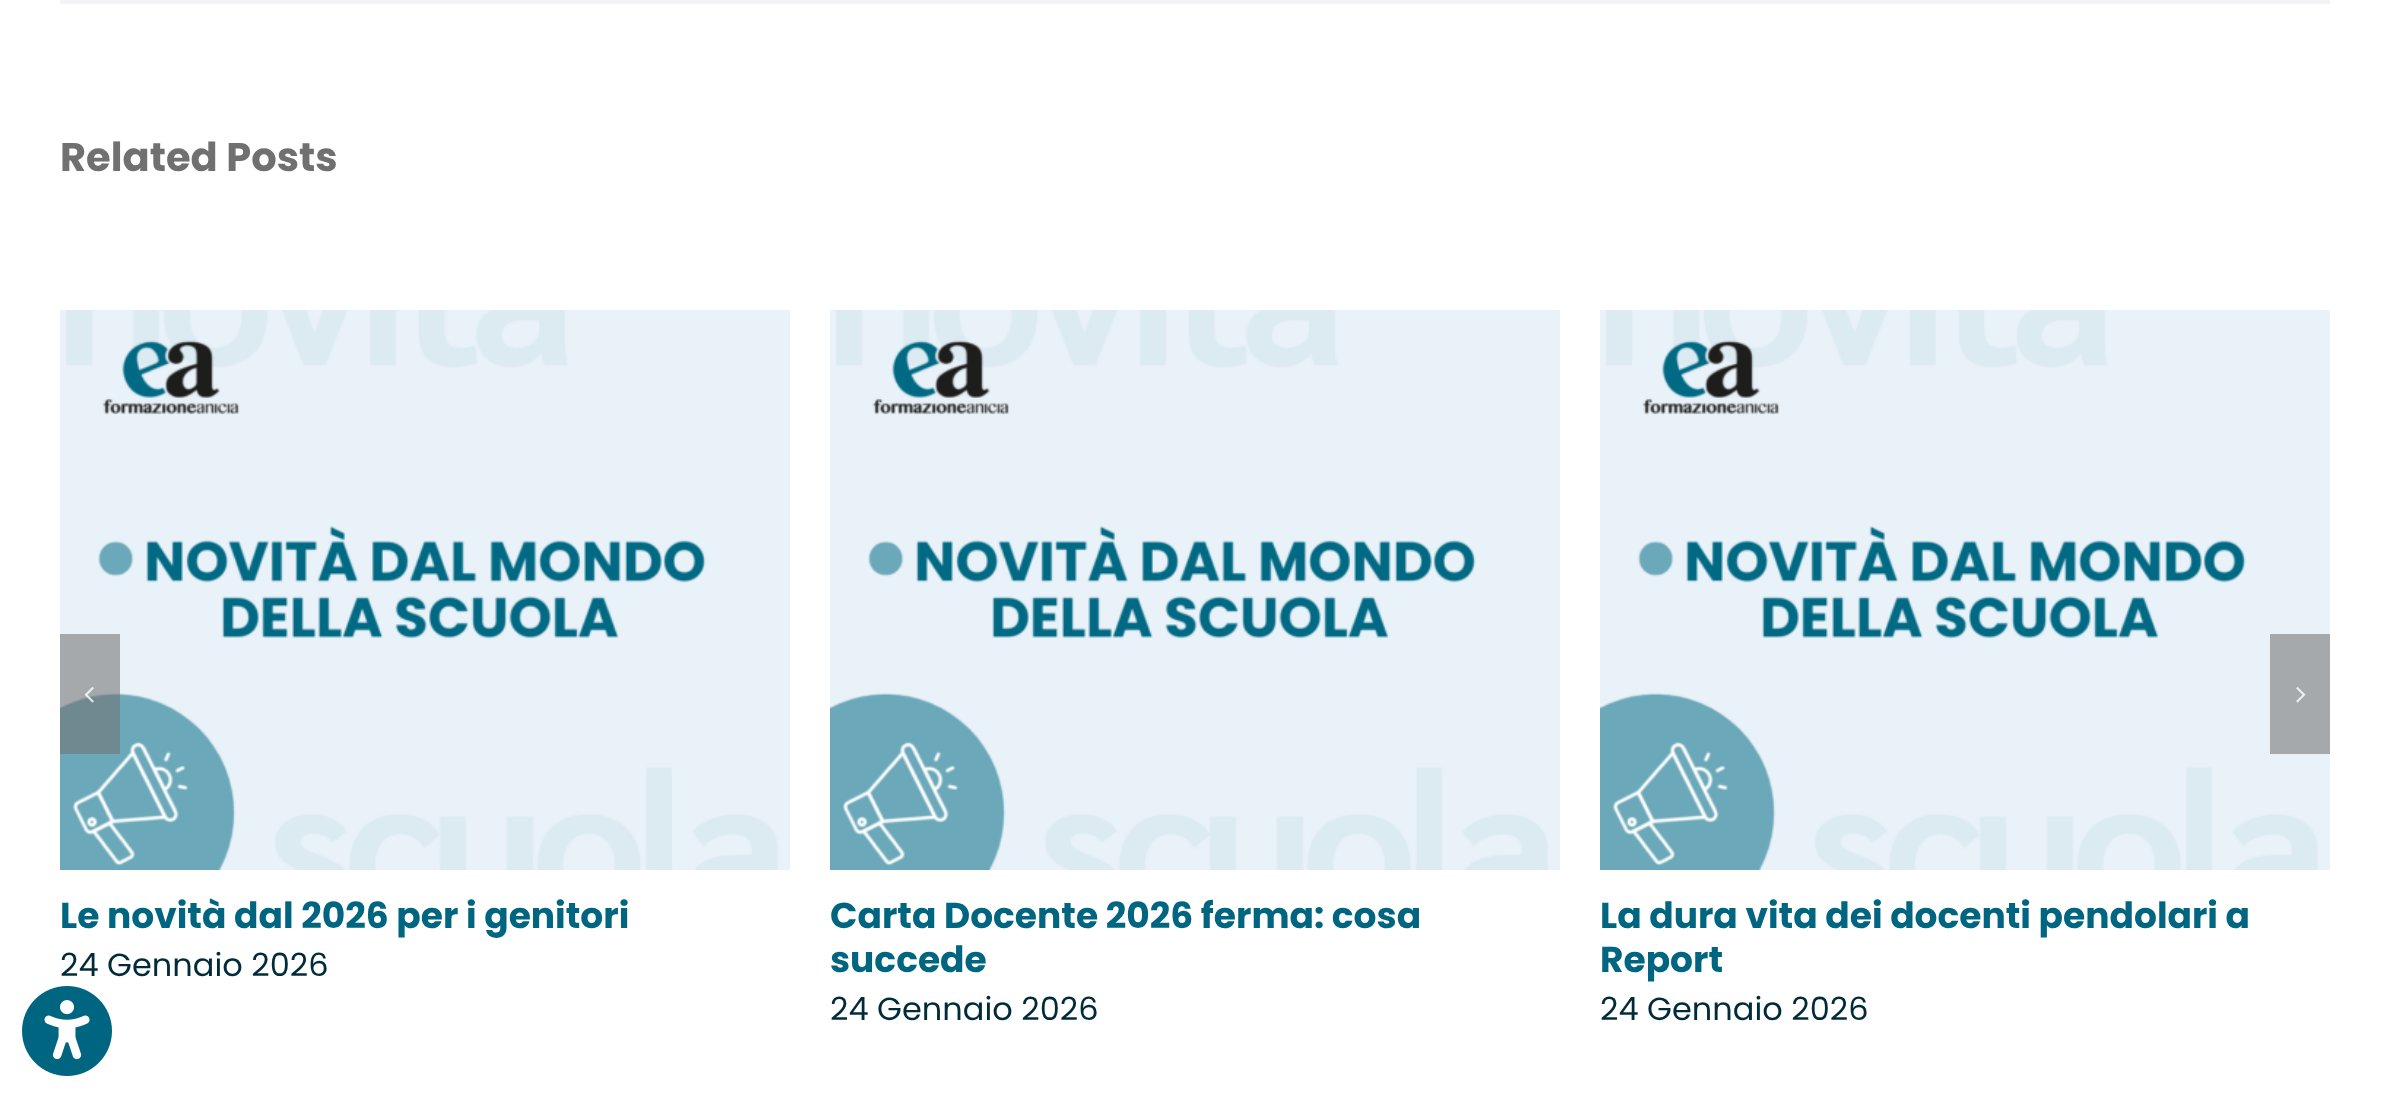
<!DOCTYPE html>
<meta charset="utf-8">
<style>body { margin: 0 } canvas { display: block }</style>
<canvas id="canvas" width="2389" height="1098"></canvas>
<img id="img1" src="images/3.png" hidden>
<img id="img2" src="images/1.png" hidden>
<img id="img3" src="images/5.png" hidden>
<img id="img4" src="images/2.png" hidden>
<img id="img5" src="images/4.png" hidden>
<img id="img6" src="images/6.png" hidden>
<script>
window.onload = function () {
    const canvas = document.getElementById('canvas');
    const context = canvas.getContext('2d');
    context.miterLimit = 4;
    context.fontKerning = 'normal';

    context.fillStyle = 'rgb(255, 255, 255)';
    context.fillRect(0, 0, 2389, 1098);
    context.fillStyle = 'rgb(242, 243, 245)';
    context.fillRect(60, 0, 2270, 4);
    context.drawImage(document.getElementById('img1'), 60, 310, 730, 560);
    context.fillStyle = 'rgba(112, 112, 112, 0.56)';
    context.fillRect(60, 634, 60, 120);
    context.drawImage(document.getElementById('img2'), 84, 687, 10, 16);
    context.drawImage(document.getElementById('img3'), 1600, 310, 730, 560);
    context.fillStyle = 'rgb(165, 169, 172)';
    context.fillRect(2270, 634, 60, 120);
    context.drawImage(document.getElementById('img4'), 2296, 687, 10, 16);
    context.drawImage(document.getElementById('img5'), 830, 310, 730, 560);
    context.drawImage(document.getElementById('img6'), 22, 986, 90, 90);
    context.font = 'bold 40px Poppins';
    context.fillStyle = 'rgb(112, 112, 112)';
    context.fillText('Related Posts', 60, 171);
    context.font = 'bold 36px Poppins';
    context.fillStyle = 'rgb(0, 101, 128)';
    context.fillText('Le novità dal 2026 per i genitori', 60, 928);
    context.font = '32px Poppins';
    context.fillStyle = 'rgb(2, 43, 58)';
    context.fillText('24 Gennaio 2026', 60, 976);
    context.font = 'bold 36px Poppins';
    context.fillStyle = 'rgb(0, 101, 128)';
    context.fillText('Carta Docente 2026 ferma: cosa', 830, 928);
    context.fillText('succede', 830, 972);
    context.font = '32px Poppins';
    context.fillStyle = 'rgb(2, 43, 58)';
    context.fillText('24 Gennaio 2026', 830, 1020);
    context.font = 'bold 36px Poppins';
    context.fillStyle = 'rgb(0, 101, 128)';
    context.fillText('La dura vita dei docenti pendolari a', 1600, 928);
    context.fillText('Report', 1600, 972);
    context.font = '32px Poppins';
    context.fillStyle = 'rgb(2, 43, 58)';
    context.fillText('24 Gennaio 2026', 1600, 1020);
};
</script>
